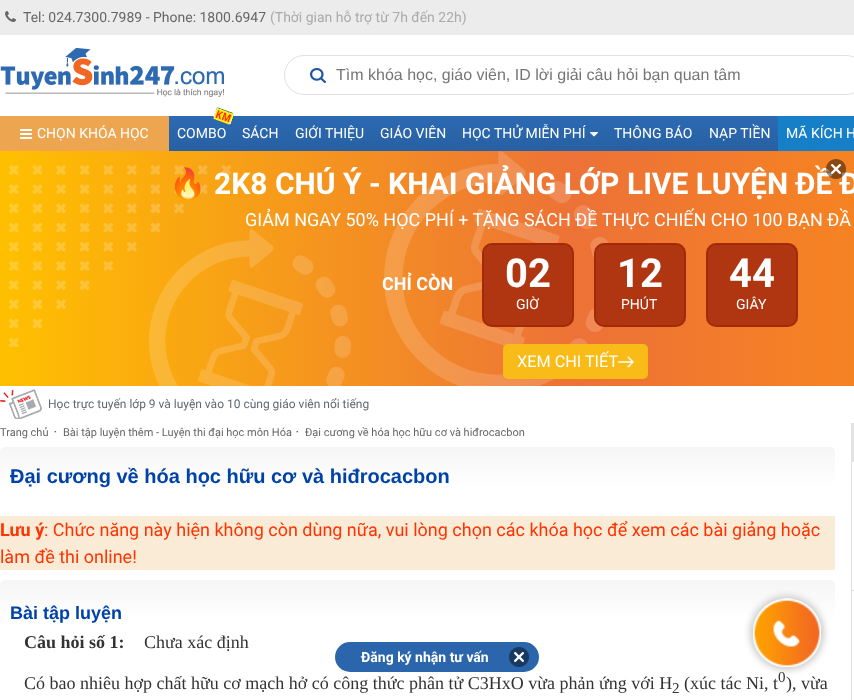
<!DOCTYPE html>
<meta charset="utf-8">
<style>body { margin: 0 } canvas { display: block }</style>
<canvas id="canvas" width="854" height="700"></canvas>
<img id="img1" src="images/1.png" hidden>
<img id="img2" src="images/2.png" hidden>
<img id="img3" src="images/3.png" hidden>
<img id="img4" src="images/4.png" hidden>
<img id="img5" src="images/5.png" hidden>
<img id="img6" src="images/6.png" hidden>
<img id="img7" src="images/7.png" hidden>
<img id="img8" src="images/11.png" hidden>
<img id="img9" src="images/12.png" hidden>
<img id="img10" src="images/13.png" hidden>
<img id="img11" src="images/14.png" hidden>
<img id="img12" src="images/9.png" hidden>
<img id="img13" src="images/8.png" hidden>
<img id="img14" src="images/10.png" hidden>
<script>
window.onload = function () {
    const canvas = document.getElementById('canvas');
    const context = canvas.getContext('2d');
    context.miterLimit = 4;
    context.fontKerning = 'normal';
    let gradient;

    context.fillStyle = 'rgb(255, 255, 255)';
    context.fillRect(0, 0, 854, 700);
    context.fillStyle = 'rgb(236, 236, 236)';
    context.fillRect(0, 0, 854, 35);
    context.drawImage(document.getElementById('img1'), 5, 11, 11, 11);
    context.drawImage(document.getElementById('img2'), 0, 47, 224, 50);
    context.beginPath();
    context.roundRect(284.5, 55.5, 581, 39, 19.5);
    context.strokeStyle = 'rgb(225, 225, 225)';
    context.stroke();
    context.drawImage(document.getElementById('img3'), 310, 68, 16, 15);
    gradient = context.createLinearGradient(576, 116, 576, 151);
    gradient.addColorStop(0, 'rgb(45, 106, 178)');
    gradient.addColorStop(1, 'rgb(39, 96, 163)');
    context.fillStyle = gradient;
    context.fillRect(169, 116, 609, 35);
    context.fillStyle = 'rgb(237, 165, 80)';
    context.fillRect(0, 116, 169, 35);
    context.drawImage(document.getElementById('img4'), 20, 129, 12, 10);
    context.drawImage(document.getElementById('img5'), 213, 107, 21, 18);
    context.drawImage(document.getElementById('img6'), 213, 108, 21, 17);
    context.drawImage(document.getElementById('img7'), 590, 132, 8, 5);
    context.fillStyle = 'rgb(22, 127, 200)';
    context.fillRect(778, 116, 76, 35);
    gradient = context.createLinearGradient(0, 269, 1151, 268);
    gradient.addColorStop(0, 'rgb(255, 192, 0)');
    gradient.addColorStop(0.5, 'rgb(237, 114, 55)');
    gradient.addColorStop(1, 'rgb(255, 149, 12)');
    context.fillStyle = gradient;
    context.fillRect(0, 151, 854, 235);
    context.fillStyle = 'rgb(176, 54, 17)';
    context.beginPath();
    context.roundRect(707, 244, 90, 82, 9);
    context.fill();
    context.strokeStyle = 'rgb(162, 42, 6)';
    context.lineWidth = 2;
    context.stroke();
    context.drawImage(document.getElementById('img8'), 0, 389, 42, 30);
    context.drawImage(document.getElementById('img9'), 54, 431, 2, 2);
    context.drawImage(document.getElementById('img9'), 296, 431, 2, 2);
    gradient = context.createLinearGradient(0, 447, 0, 486);
    gradient.addColorStop(0, 'rgb(245, 245, 245)');
    gradient.addColorStop(1, 'rgb(255, 255, 255)');
    context.fillStyle = gradient;
    context.beginPath();
    context.roundRect(0, 447, 835, 39, [5, 5, 0, 0]);
    context.fill();
    context.fillStyle = 'rgb(250, 235, 215)';
    context.fillRect(0, 516, 835, 54);
    gradient = context.createLinearGradient(0, 580, 0, 619);
    gradient.addColorStop(0, 'rgb(245, 245, 245)');
    gradient.addColorStop(1, 'rgb(255, 255, 255)');
    context.fillStyle = gradient;
    context.beginPath();
    context.roundRect(0, 580, 835, 39, [5, 5, 0, 0]);
    context.fill();
    context.strokeStyle = 'rgb(224, 224, 224)';
    context.lineWidth = 1;
    context.strokeRect(851.5, 423.5, 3, 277);
    context.fillStyle = 'rgb(227, 227, 227)';
    context.fillRect(851, 424, 3, 38);
    context.fillStyle = 'rgb(221, 221, 221)';
    context.fillRect(852, 590, 2, 1);
    context.fillStyle = 'rgb(43, 102, 172)';
    context.beginPath();
    context.roundRect(335, 642, 204, 30, 15);
    context.fill();
    context.drawImage(document.getElementById('img10'), 509, 647, 20, 20);
    context.fillStyle = 'rgb(201, 201, 201)';
    context.filter = 'blur(3.5px)';
    context.beginPath();
    context.roundRect(750, 596, 74, 74, 37);
    context.fill();
    context.filter = 'none';
    context.drawImage(document.getElementById('img11'), 753, 598, 68, 69);
    context.font = '14px Roboto';
    context.fillStyle = 'rgb(102, 102, 102)';
    context.fillText('Tel: 024.7300.7989 - Phone: 1800.6947', 23, 22);
    context.fillStyle = 'rgb(170, 170, 170)';
    context.fillText('(Thời gian hỗ trợ từ 7h đến 22h)', 270, 22);
    context.font = '16px Liberation Sans';
    context.fillStyle = 'rgb(117, 117, 117)';
    context.fillText('Tìm khóa học, giáo viên, ID lời giải câu hỏi bạn quan tâm', 336, 80);
    context.font = '14px Roboto';
    context.fillStyle = 'rgb(255, 255, 255)';
    context.fillText('CHỌN KHÓA HỌC', 37, 138);
    context.fillText('COMBO', 177, 138);
    context.fillText('SÁCH', 242, 138);
    context.fillText('GIỚI THIỆU', 295, 138);
    context.fillText('GIÁO VIÊN', 380, 138);
    context.fillText('HỌC THỬ MIỄN PHÍ', 462, 138);
    context.fillText('THÔNG BÁO', 614, 138);
    context.fillText('NẠP TIỀN', 709, 138);
    context.fillText('MÃ KÍCH H', 786, 138);
    context.font = 'bold 40px Roboto';
    context.fillText('44', 729, 287);
    context.font = '14px Roboto';
    context.fillText('GIÂY', 736, 309);
    context.font = '12px Roboto';
    context.fillStyle = 'rgb(97, 103, 112)';
    context.fillText('Học trực tuyến lớp 9 và luyện vào 10 cùng giáo viên nổi tiếng', 48, 408);
    context.drawImage(document.getElementById('img12'), 9, 151, 599, 250);
    context.font = 'bold 30px Roboto';
    context.fillStyle = 'rgb(255, 255, 255)';
    context.fillText('2K8 CHÚ Ý - KHAI GIẢNG LỚP LIVE LUYỆN ĐỀ Đ', 214, 194);
    context.drawImage(document.getElementById('img13'), 826, 159, 20, 20);
    context.fillStyle = 'rgb(176, 54, 17)';
    context.beginPath();
    context.roundRect(595, 244, 90, 82, 9);
    context.fill();
    context.strokeStyle = 'rgb(162, 42, 6)';
    context.lineWidth = 2;
    context.stroke();
    context.font = '14px Roboto';
    context.fillStyle = 'rgb(255, 255, 255)';
    context.fillText('PHÚT', 621, 309);
    context.fillStyle = 'rgb(176, 54, 17)';
    context.beginPath();
    context.roundRect(483, 244, 90, 82, 9);
    context.fill();
    context.stroke();
    context.fillStyle = 'rgb(255, 255, 255)';
    context.fillText('GIỜ', 516, 309);
    context.font = '18px Roboto';
    context.fillText('GIẢM NGAY 50% HỌC PHÍ + TẶNG SÁCH ĐỀ THỰC CHIẾN CHO 100 BẠN ĐẦ', 245, 226);
    context.font = 'bold 30px Noto Color Emoji';
    context.fillText('🔥', 169, 194);
    context.fillStyle = 'rgb(248, 187, 24)';
    context.beginPath();
    context.roundRect(503, 344, 145, 35, 5);
    context.fill();
    context.drawImage(document.getElementById('img14'), 618, 356, 16, 12);
    context.font = '16.25px Roboto';
    context.fillStyle = 'rgb(255, 255, 255)';
    context.fillText('XEM CHI TIẾT', 517, 367);
    context.font = 'bold 40px Roboto';
    context.fillText('12', 617, 287);
    context.fillText('02', 505, 287);
    context.font = 'bold 18px Roboto';
    context.fillText('CHỈ CÒN', 382, 290);
    context.font = '11px Roboto';
    context.fillStyle = 'rgb(102, 102, 102)';
    context.fillText('Trang chủ', 0, 436);
    context.fillText('Bài tập luyện thêm - Luyện thi đại học môn Hóa', 63, 436);
    context.fillText('Đại cương về hóa học hữu cơ và hiđrocacbon', 305, 436);
    context.font = 'bold 20px Liberation Sans';
    context.fillStyle = 'rgb(0, 67, 168)';
    context.fillText('Đại cương về hóa học hữu cơ và hiđrocacbon', 10, 483);
    context.font = 'bold 18px Roboto';
    context.fillStyle = 'rgb(255, 51, 0)';
    context.fillText('Lưu ý', 0, 536);
    context.font = '18px Roboto';
    context.fillText(': Chức năng này hiện không còn dùng nữa, vui lòng chọn các khóa học để xem các bài giảng hoặc', 44, 536);
    context.fillText('làm đề thi online!', 0, 563);
    context.font = 'bold 18px Liberation Sans';
    context.fillStyle = 'rgb(0, 67, 168)';
    context.fillText('Bài tập luyện', 10, 619);
    context.font = 'bold 18px Liberation Serif';
    context.fillStyle = 'rgb(51, 51, 51)';
    context.fillText('Câu hỏi số 1:', 24, 648);
    context.font = '18px Liberation Serif';
    context.fillText('Chưa xác định', 144, 648);
    context.fillText('Có bao nhiêu hợp chất hữu cơ mạch hở có công thức phân tử C3HxO vừa phản ứng với H', 24, 689);
    context.font = '15px Liberation Serif';
    context.fillText('2', 672, 693);
    context.font = '18px Liberation Serif';
    context.fillText('(xúc tác Ni, t', 684, 689);
    context.font = '15px Liberation Serif';
    context.fillText('0', 778, 682);
    context.font = '18px Liberation Serif';
    context.fillText('), vừa', 786, 689);
    context.font = 'bold 14px Roboto';
    context.fillStyle = 'rgb(255, 255, 255)';
    context.fillText('Đăng ký nhận tư vấn', 361, 662);
};
</script>
